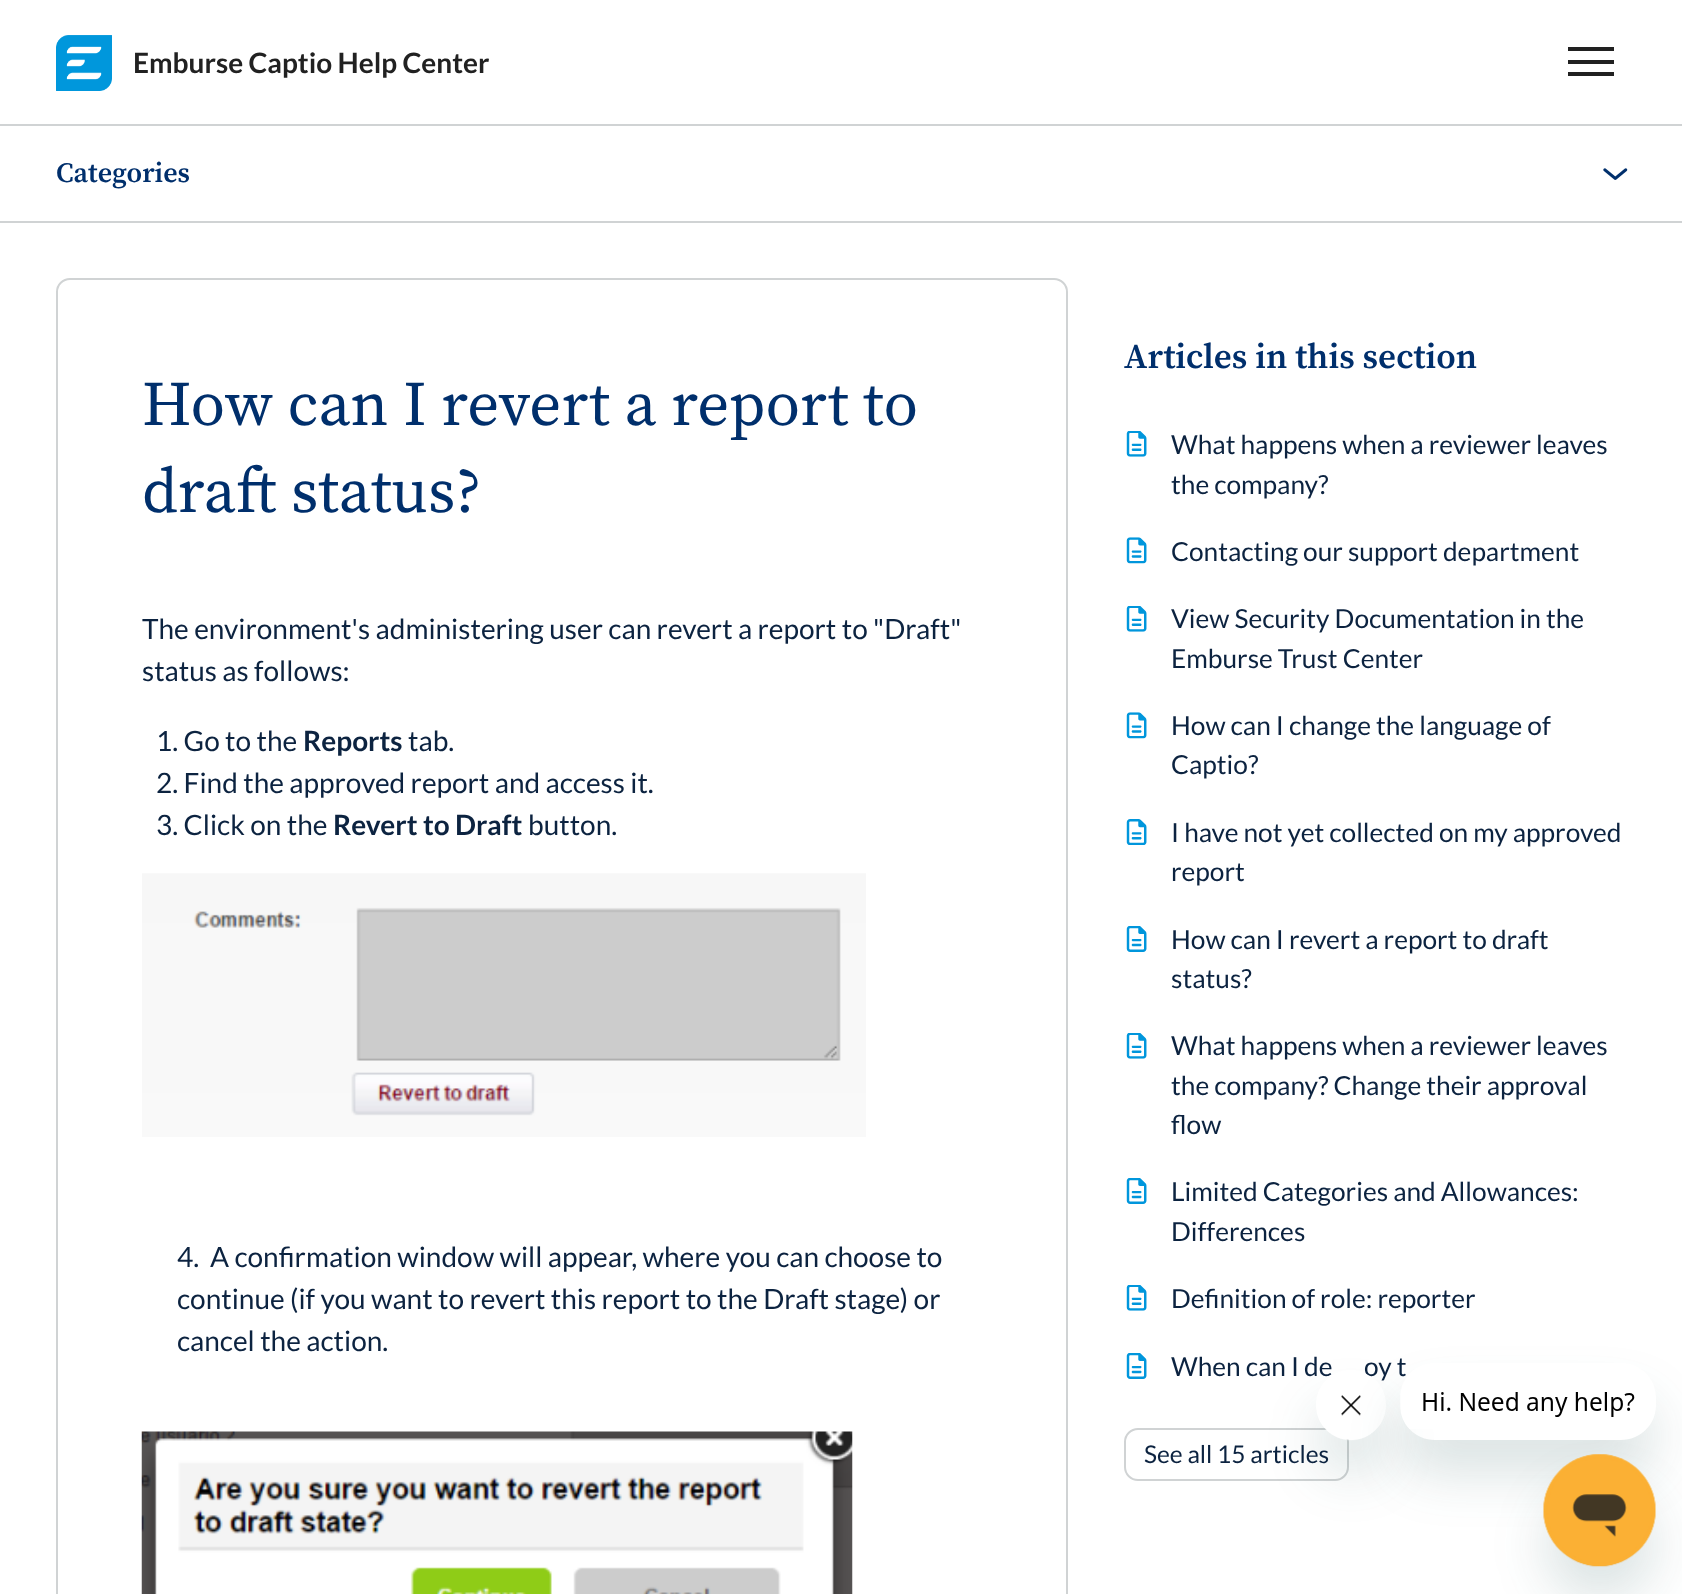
<!DOCTYPE html>
<meta charset="utf-8">
<style>body { margin: 0 } canvas { display: block }</style>
<canvas id="canvas" width="1682" height="1594"></canvas>
<img id="img1" src="images/1.png" hidden>
<img id="img2" src="images/2.png" hidden>
<img id="img3" src="images/3.png" hidden>
<img id="img4" src="images/4.png" hidden>
<img id="img5" src="images/5.png" hidden>
<img id="img6" src="images/6.png" hidden>
<img id="img7" src="images/7.png" hidden>
<img id="img8" src="images/8.png" hidden>
<img id="img9" src="images/10.png" hidden>
<img id="img10" src="images/9.png" hidden>
<img id="img11" src="images/11.png" hidden>
<script>
window.onload = function () {
    const canvas = document.getElementById('canvas');
    const context = canvas.getContext('2d');
    context.miterLimit = 4;
    context.fontKerning = 'normal';

    context.fillStyle = 'rgb(255, 255, 255)';
    context.fillRect(0, 0, 1682, 1594);
    context.fillStyle = 'rgb(208, 211, 212)';
    context.fillRect(0, 124, 1682, 2);
    context.drawImage(document.getElementById('img1'), 56, 35, 56, 56);
    context.fillStyle = 'rgb(33, 33, 33)';
    context.fillRect(1568, 60, 46, 4);
    context.fillRect(1568, 47, 46, 4);
    context.fillRect(1568, 72, 46, 4);
    context.fillStyle = 'rgb(208, 211, 212)';
    context.fillRect(0, 221, 1682, 2);
    context.drawImage(document.getElementById('img2'), 1603, 168, 25, 12);
    context.beginPath();
    context.roundRect(57, 279, 1010, 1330, 13);
    context.strokeStyle = 'rgb(208, 211, 212)';
    context.lineWidth = 2;
    context.stroke();
    context.drawImage(document.getElementById('img3'), 142, 873, 724, 264);
    context.drawImage(document.getElementById('img4'), 141, 1431, 712, 163);
    context.drawImage(document.getElementById('img5'), 1126, 431, 21, 26);
    context.drawImage(document.getElementById('img6'), 1126, 537, 21, 27);
    context.drawImage(document.getElementById('img5'), 1126, 606, 21, 26);
    context.drawImage(document.getElementById('img6'), 1126, 712, 21, 27);
    context.drawImage(document.getElementById('img7'), 1126, 819, 21, 26);
    context.drawImage(document.getElementById('img8'), 1126, 926, 21, 26);
    context.drawImage(document.getElementById('img5'), 1126, 1033, 21, 26);
    context.drawImage(document.getElementById('img8'), 1126, 1178, 21, 26);
    context.drawImage(document.getElementById('img5'), 1126, 1285, 21, 26);
    context.drawImage(document.getElementById('img8'), 1126, 1353, 21, 26);
    context.beginPath();
    context.roundRect(1125, 1429, 223, 51, 13);
    context.stroke();
    context.save();
    context.beginPath();
    context.moveTo(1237, 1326);
    context.lineTo(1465, 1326);
    context.lineTo(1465, 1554);
    context.lineTo(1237, 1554);
    context.closePath();
    context.moveTo(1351, 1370);
    context.bezierCurveTo(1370.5, 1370, 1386, 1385.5, 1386, 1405);
    context.bezierCurveTo(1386, 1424.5, 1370.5, 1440, 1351, 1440);
    context.bezierCurveTo(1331.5, 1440, 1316, 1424.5, 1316, 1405);
    context.bezierCurveTo(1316, 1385.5, 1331.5, 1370, 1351, 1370);
    context.closePath();
    context.clip('evenodd');
    context.fillStyle = 'rgba(23, 73, 77, 0.15)';
    context.filter = 'blur(26px)';
    context.beginPath();
    context.roundRect(1316, 1405, 70, 70, 35);
    context.fill();
    context.filter = 'none';
    context.restore();
    context.font = 'bold 28px Lato';
    context.fillStyle = 'rgb(33, 33, 33)';
    context.fillText('Emburse Captio Help Center', 133, 73);
    context.font = '600 28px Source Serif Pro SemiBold';
    context.fillStyle = 'rgb(0, 47, 108)';
    context.fillText('Categories', 56, 182);
    context.font = '63px Source Serif Pro';
    context.fillText('How can I revert a report to', 142, 425);
    context.fillText('draft status?', 142, 512);
    context.font = '28px Lato';
    context.fillStyle = 'rgb(12, 35, 64)';
    context.fillText('The environment\'s administering user can revert a report to "Draft"', 142, 639);
    context.fillText('status as follows:', 142, 681);
    context.fillText('1. Go to the', 156, 751);
    context.font = 'bold 28px Lato';
    context.fillText('Reports', 303, 751);
    context.font = '28px Lato';
    context.fillText('tab.', 408, 751);
    context.fillText('2. Find the approved report and access it.', 156, 793);
    context.fillText('3. Click on the', 156, 835);
    context.font = 'bold 28px Lato';
    context.fillText('Revert to Draft', 333, 835);
    context.font = '28px Lato';
    context.fillText('button.', 528, 835);
    context.fillText('4.', 177, 1267);
    context.fillText('A confirmation window will appear, where you can choose to', 210, 1267);
    context.fillText('continue (if you want to revert this report to the Draft stage) or', 177, 1309);
    context.fillText('cancel the action.', 177, 1351);
    context.font = '600 35px Source Serif Pro SemiBold';
    context.fillStyle = 'rgb(0, 47, 108)';
    context.fillText('Articles in this section', 1124, 368);
    context.font = '26.25px Lato';
    context.fillStyle = 'rgb(12, 35, 64)';
    context.fillText('What happens when a reviewer leaves', 1171, 454);
    context.fillText('the company?', 1171, 494);
    context.fillText('Contacting our support department', 1171, 561);
    context.fillText('View Security Documentation in the', 1171, 628);
    context.fillText('Emburse Trust Center', 1171, 668);
    context.fillText('How can I change the language of', 1171, 735);
    context.fillText('Captio?', 1171, 774);
    context.fillText('I have not yet collected on my approved', 1171, 842);
    context.fillText('report', 1171, 881);
    context.fillText('How can I revert a report to draft', 1171, 949);
    context.fillText('status?', 1171, 988);
    context.fillText('What happens when a reviewer leaves', 1171, 1055);
    context.fillText('the company? Change their approval', 1171, 1095);
    context.fillText('flow', 1171, 1134);
    context.fillText('Limited Categories and Allowances:', 1171, 1201);
    context.fillText('Differences', 1171, 1241);
    context.fillText('Definition of role: reporter', 1171, 1308);
    context.fillText('When can I de', 1171, 1376);
    context.fillText('oy t', 1364, 1376);
    context.font = '24.5px Lato';
    context.fillText('See all 15 articles', 1144, 1463);
    context.drawImage(document.getElementById('img9'), 1324, 1370, 47, 71);
    context.save();
    context.beginPath();
    context.moveTo(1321, 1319);
    context.lineTo(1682, 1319);
    context.lineTo(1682, 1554);
    context.lineTo(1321, 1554);
    context.closePath();
    context.moveTo(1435, 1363);
    context.lineTo(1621, 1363);
    context.bezierCurveTo(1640.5, 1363, 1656, 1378.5, 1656, 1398);
    context.lineTo(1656, 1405);
    context.bezierCurveTo(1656, 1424.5, 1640.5, 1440, 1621, 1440);
    context.lineTo(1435, 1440);
    context.bezierCurveTo(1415.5, 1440, 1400, 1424.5, 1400, 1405);
    context.lineTo(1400, 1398);
    context.bezierCurveTo(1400, 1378.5, 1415.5, 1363, 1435, 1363);
    context.closePath();
    context.clip('evenodd');
    context.fillStyle = 'rgba(23, 73, 77, 0.15)';
    context.filter = 'blur(26px)';
    context.beginPath();
    context.roundRect(1400, 1398, 256, 77, 35);
    context.fill();
    context.filter = 'none';
    context.restore();
    context.drawImage(document.getElementById('img10'), 1401, 1363, 234, 66);
    context.fillStyle = 'rgba(23, 73, 77, 0.15)';
    context.filter = 'blur(26px)';
    context.beginPath();
    context.roundRect(1544, 1489, 112, 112, 56);
    context.fill();
    context.filter = 'none';
    context.drawImage(document.getElementById('img11'), 1543, 1454, 113, 113);
};
</script>
